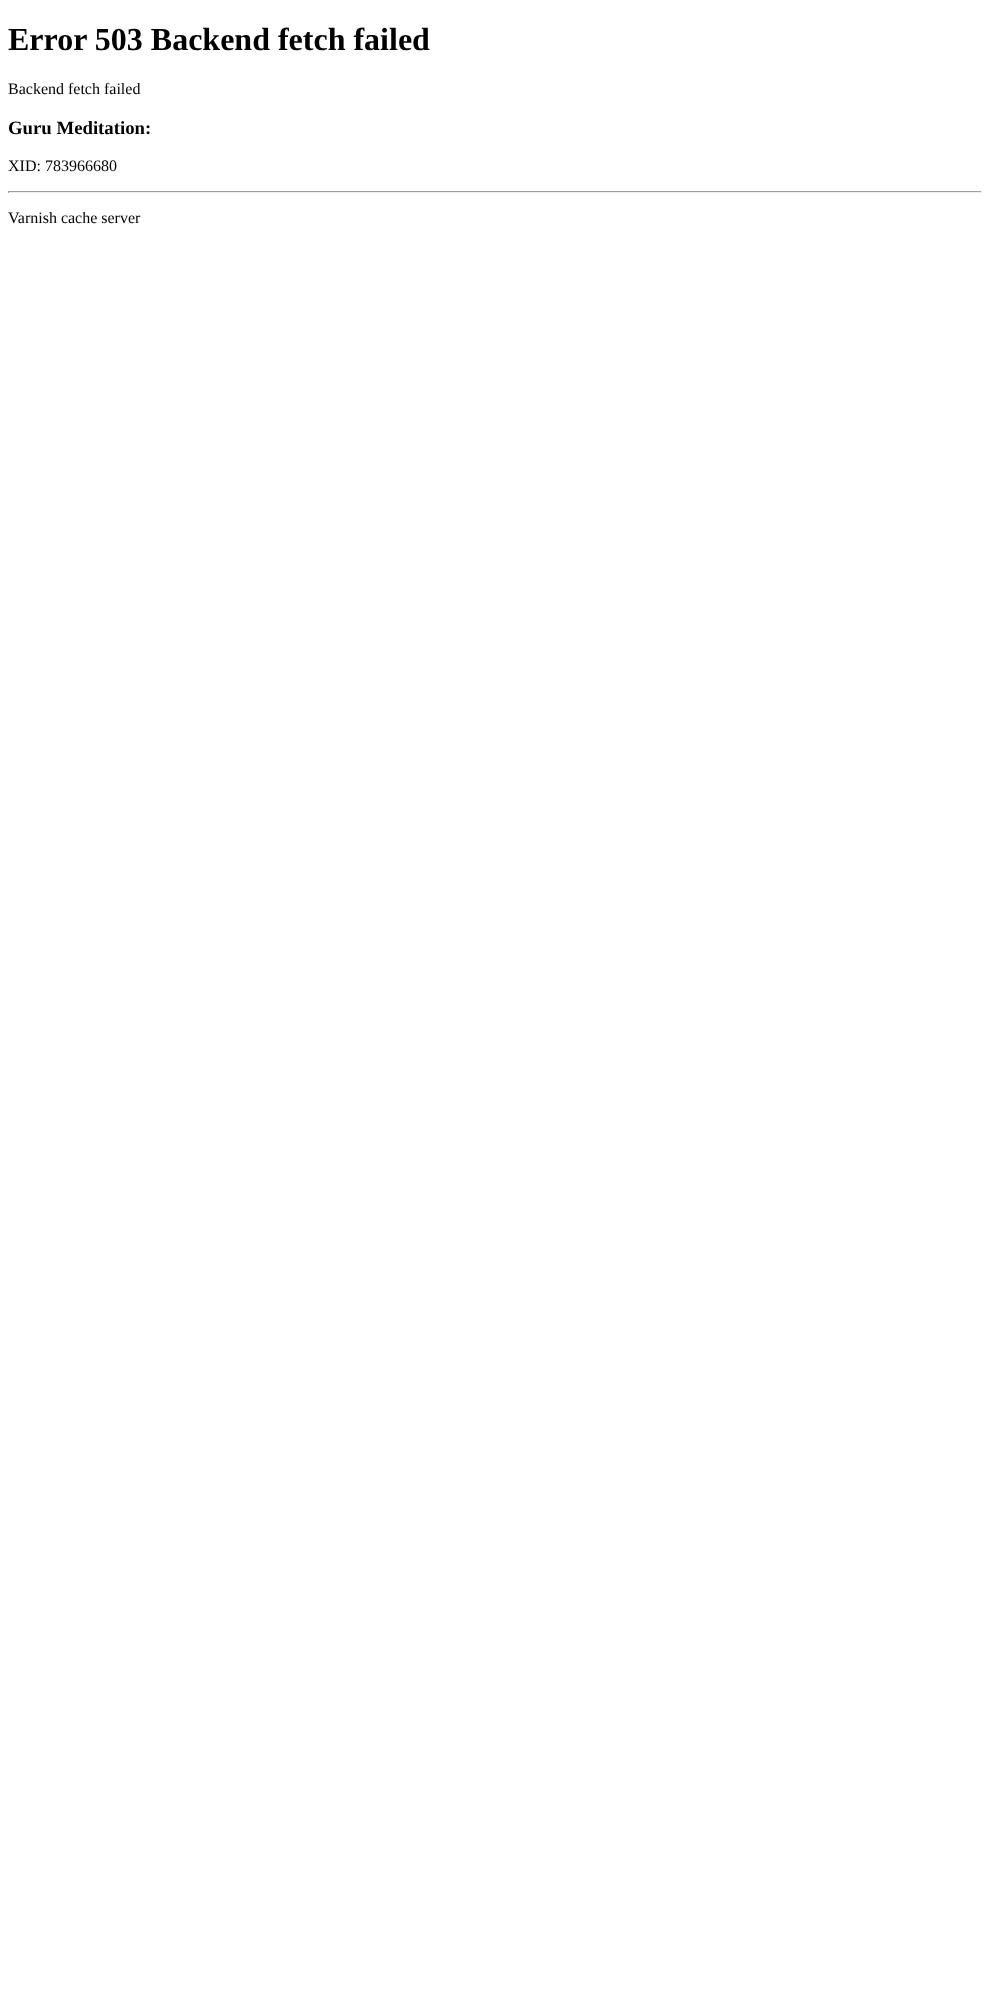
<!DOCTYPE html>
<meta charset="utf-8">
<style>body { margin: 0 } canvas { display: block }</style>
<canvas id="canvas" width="990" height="1996"></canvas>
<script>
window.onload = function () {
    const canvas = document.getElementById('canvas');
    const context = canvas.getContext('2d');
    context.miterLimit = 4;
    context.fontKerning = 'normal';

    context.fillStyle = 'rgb(255, 255, 255)';
    context.fillRect(0, 0, 990, 1996);
    context.fillStyle = 'rgb(159, 159, 159)';
    context.fillRect(8, 191, 974, 1);
    context.fillStyle = 'rgb(238, 238, 238)';
    context.fillRect(981, 191, 1, 2);
    context.fillRect(8, 192, 974, 1);
    context.fillStyle = 'rgb(159, 159, 159)';
    context.fillRect(8, 191, 1, 2);
    context.font = 'bold 32px Liberation Serif';
    context.fillStyle = 'rgb(0, 0, 0)';
    context.fillText('Error 503 Backend fetch failed', 8, 50);
    context.font = '16px Liberation Serif';
    context.fillText('Backend fetch failed', 8, 94);
    context.font = 'bold 18.75px Liberation Serif';
    context.fillText('Guru Meditation:', 8, 134);
    context.font = '16px Liberation Serif';
    context.fillText('XID: 783966680', 8, 171);
    context.fillText('Varnish cache server', 8, 223);
};
</script>
